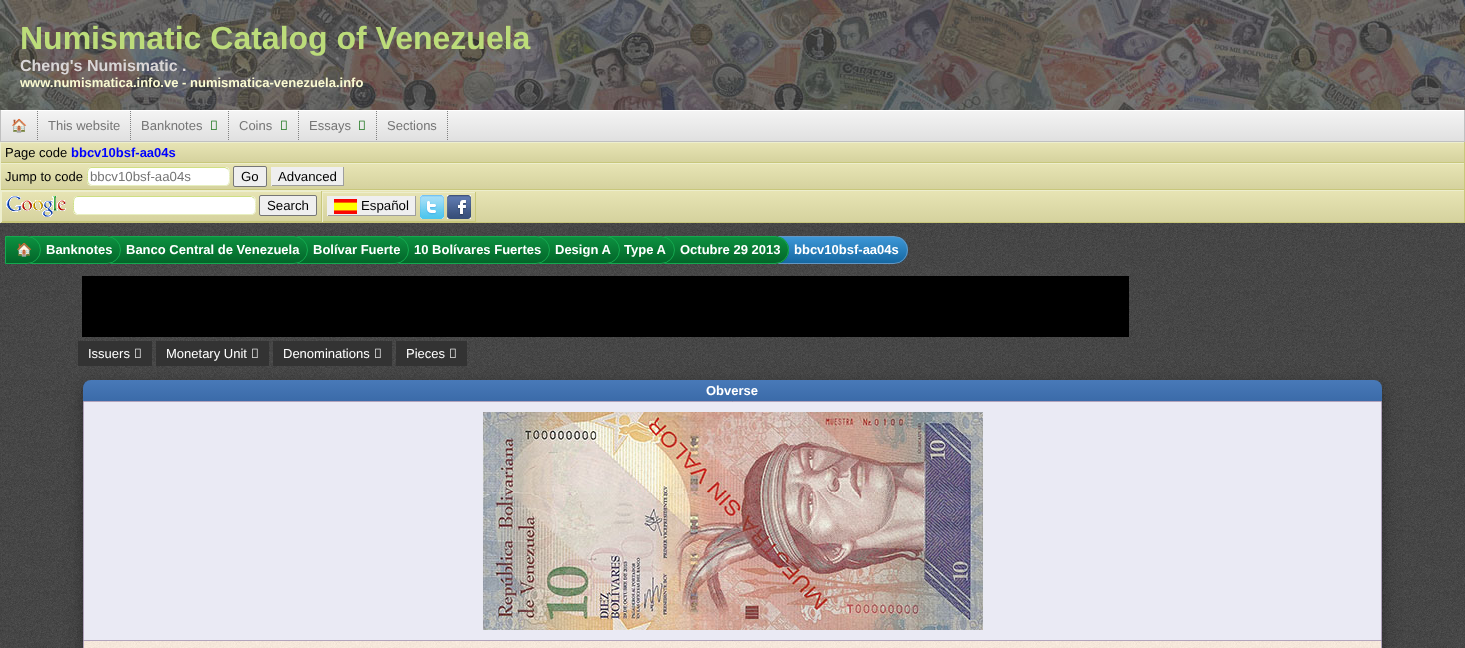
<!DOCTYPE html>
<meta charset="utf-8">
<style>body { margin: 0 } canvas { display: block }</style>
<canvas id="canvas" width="1465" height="648"></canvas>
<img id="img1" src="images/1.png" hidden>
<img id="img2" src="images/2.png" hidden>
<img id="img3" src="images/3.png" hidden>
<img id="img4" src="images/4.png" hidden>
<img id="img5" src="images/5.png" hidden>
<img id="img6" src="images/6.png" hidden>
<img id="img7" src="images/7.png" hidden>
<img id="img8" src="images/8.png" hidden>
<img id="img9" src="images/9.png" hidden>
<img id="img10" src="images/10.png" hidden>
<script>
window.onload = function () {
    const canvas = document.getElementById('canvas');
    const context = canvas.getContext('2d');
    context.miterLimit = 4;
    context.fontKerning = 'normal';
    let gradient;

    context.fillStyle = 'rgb(255, 255, 255)';
    context.fillRect(0, 0, 1465, 648);
    context.drawImage(document.getElementById('img1'), 0, 223, 1465, 425);
    context.drawImage(document.getElementById('img2'), 0, 0, 1465, 110);
    gradient = context.createLinearGradient(733, 141, 733, 111);
    gradient.addColorStop(0, 'rgb(224, 224, 224)');
    gradient.addColorStop(1, 'rgb(244, 244, 244)');
    context.fillStyle = gradient;
    context.fillRect(1, 111, 1463, 30);
    context.fillStyle = 'rgb(192, 192, 192)';
    context.fillRect(1464, 110, 1, 32);
    context.fillRect(0, 141, 1465, 1);
    context.fillRect(0, 110, 1, 32);
    context.beginPath();
    context.moveTo(37.5, 111);
    context.lineTo(37.5, 141);
    context.strokeStyle = 'rgb(128, 128, 128)';
    context.setLineDash([1, 1]);
    context.stroke();
    context.beginPath();
    context.moveTo(130.5, 111);
    context.lineTo(130.5, 141);
    context.stroke();
    context.beginPath();
    context.moveTo(228.5, 111);
    context.lineTo(228.5, 141);
    context.stroke();
    context.drawImage(document.getElementById('img3'), 211, 120, 6, 10);
    context.beginPath();
    context.moveTo(298.5, 111);
    context.lineTo(298.5, 141);
    context.stroke();
    context.drawImage(document.getElementById('img3'), 281, 120, 6, 10);
    context.beginPath();
    context.moveTo(376.5, 111);
    context.lineTo(376.5, 141);
    context.stroke();
    context.drawImage(document.getElementById('img3'), 359, 120, 6, 10);
    context.beginPath();
    context.moveTo(447.5, 111);
    context.lineTo(447.5, 141);
    context.stroke();
    gradient = context.createLinearGradient(733, 162, 733, 143);
    gradient.addColorStop(0, 'rgb(213, 210, 158)');
    gradient.addColorStop(1, 'rgb(231, 228, 180)');
    context.fillStyle = gradient;
    context.fillRect(1, 143, 1463, 19);
    context.fillStyle = 'rgb(237, 238, 206)';
    context.fillRect(0, 142, 1465, 1);
    context.fillStyle = 'rgb(200, 199, 123)';
    context.fillRect(1464, 142, 1, 21);
    context.fillRect(0, 162, 1465, 1);
    context.fillStyle = 'rgb(237, 238, 206)';
    context.fillRect(0, 142, 1, 21);
    gradient = context.createLinearGradient(733, 189, 733, 164);
    gradient.addColorStop(0, 'rgb(213, 210, 158)');
    gradient.addColorStop(1, 'rgb(231, 228, 180)');
    context.fillStyle = gradient;
    context.fillRect(1, 164, 1463, 25);
    context.fillStyle = 'rgb(237, 238, 206)';
    context.fillRect(0, 163, 1465, 1);
    context.fillStyle = 'rgb(200, 199, 123)';
    context.fillRect(1464, 163, 1, 27);
    context.fillRect(0, 189, 1465, 1);
    context.fillStyle = 'rgb(237, 238, 206)';
    context.fillRect(0, 163, 1, 27);
    context.fillStyle = 'rgb(255, 255, 255)';
    context.beginPath();
    context.roundRect(87, 167, 143, 19, 5);
    context.fill();
    context.beginPath();
    context.moveTo(228, 169);
    context.bezierCurveTo(230, 171, 229.5, 174, 229.5, 176.5);
    context.bezierCurveTo(229.5, 180, 230, 184.5, 226, 185.5);
    context.lineTo(92, 185.5);
    context.lineTo(89, 184);
    context.strokeStyle = 'rgb(231, 239, 192)';
    context.setLineDash([]);
    context.stroke();
    context.beginPath();
    context.moveTo(89, 184);
    context.bezierCurveTo(87, 182, 87.5, 179, 87.5, 176.5);
    context.bezierCurveTo(87.5, 173, 87, 168.5, 91, 167.5);
    context.lineTo(225, 167.5);
    context.lineTo(228, 169);
    context.strokeStyle = 'rgb(206, 223, 132)';
    context.stroke();
    context.fillStyle = 'rgb(239, 239, 239)';
    context.beginPath();
    context.roundRect(233.5, 166.5, 33, 20, 1.5);
    context.fill();
    context.strokeStyle = 'rgb(118, 118, 118)';
    context.stroke();
    context.fillRect(272, 167, 71, 18);
    context.fillStyle = 'rgb(159, 159, 159)';
    context.fillRect(343, 167, 1, 19);
    context.fillRect(271, 185, 73, 1);
    context.fillStyle = 'rgb(239, 239, 239)';
    context.fillRect(271, 167, 1, 19);
    gradient = context.createLinearGradient(733, 222, 733, 191);
    gradient.addColorStop(0, 'rgb(213, 210, 158)');
    gradient.addColorStop(1, 'rgb(231, 228, 180)');
    context.fillStyle = gradient;
    context.fillRect(2, 191, 1462, 31);
    context.fillStyle = 'rgb(237, 238, 206)';
    context.fillRect(0, 190, 1465, 1);
    context.fillStyle = 'rgb(200, 199, 123)';
    context.fillRect(1464, 190, 1, 33);
    context.fillRect(0, 222, 1465, 1);
    context.fillStyle = 'rgb(237, 238, 206)';
    context.fillRect(0, 190, 1, 33);
    context.fillRect(1, 191, 321, 1);
    context.fillStyle = 'rgb(200, 199, 123)';
    context.fillRect(321, 191, 1, 31);
    context.fillRect(1, 221, 321, 1);
    context.fillStyle = 'rgb(237, 238, 206)';
    context.fillRect(1, 191, 1, 31);
    context.drawImage(document.getElementById('img4'), 6, 196, 60, 21);
    context.fillStyle = 'rgb(255, 255, 255)';
    context.beginPath();
    context.roundRect(73, 196, 183, 19, 5);
    context.fill();
    context.beginPath();
    context.moveTo(254, 198);
    context.bezierCurveTo(256, 200, 255.5, 203, 255.5, 205.5);
    context.bezierCurveTo(255.5, 209, 256, 214.5, 251, 214.5);
    context.lineTo(77.5, 214.5);
    context.lineTo(75, 213);
    context.strokeStyle = 'rgb(231, 239, 192)';
    context.stroke();
    context.beginPath();
    context.moveTo(75, 213);
    context.bezierCurveTo(73, 211, 73.5, 208, 73.5, 205.5);
    context.bezierCurveTo(73.5, 202, 73, 196.5, 78, 196.5);
    context.lineTo(251.5, 196.5);
    context.lineTo(254, 198);
    context.strokeStyle = 'rgb(206, 223, 132)';
    context.stroke();
    context.fillStyle = 'rgb(239, 239, 239)';
    context.beginPath();
    context.roundRect(259.5, 195.5, 57, 20, 1.5);
    context.fill();
    context.strokeStyle = 'rgb(118, 118, 118)';
    context.stroke();
    context.fillStyle = 'rgb(237, 238, 206)';
    context.fillRect(322, 192, 154, 1);
    context.fillStyle = 'rgb(200, 199, 123)';
    context.fillRect(475, 192, 1, 30);
    context.fillRect(322, 221, 154, 1);
    context.fillStyle = 'rgb(237, 238, 206)';
    context.fillRect(322, 192, 1, 30);
    context.fillStyle = 'rgb(239, 239, 239)';
    context.fillRect(328, 196, 87, 19);
    context.fillStyle = 'rgb(159, 159, 159)';
    context.fillRect(415, 196, 1, 20);
    context.fillRect(327, 215, 89, 1);
    context.fillStyle = 'rgb(239, 239, 239)';
    context.fillRect(327, 196, 1, 20);
    context.drawImage(document.getElementById('img5'), 334, 199, 23, 15);
    context.drawImage(document.getElementById('img6'), 420, 195, 24, 24);
    context.drawImage(document.getElementById('img7'), 447, 195, 24, 24);
    context.save();
    context.beginPath();
    context.roundRect(778, 236, 130, 28, [0, 14, 14, 0]);
    context.clip();
    gradient = context.createLinearGradient(843, 263, 843, 237);
    gradient.addColorStop(0, 'rgb(22, 104, 162)');
    gradient.addColorStop(1, 'rgb(61, 151, 215)');
    context.fillStyle = gradient;
    context.fillRect(780, 237, 128, 26);
    context.restore();
    context.beginPath();
    context.roundRect(778.5, 236.5, 129, 27, [0, 13.5, 13.5, 0]);
    context.strokeStyle = 'rgb(99, 151, 196)';
    context.stroke();
    context.save();
    context.beginPath();
    context.roundRect(664, 236, 125, 28, [0, 14, 14, 0]);
    context.clip();
    gradient = context.createLinearGradient(727, 263, 727, 237);
    gradient.addColorStop(0, 'rgb(3, 101, 41)');
    gradient.addColorStop(1, 'rgb(12, 145, 64)');
    context.fillStyle = gradient;
    context.fillRect(666, 237, 123, 26);
    context.restore();
    context.beginPath();
    context.roundRect(664.5, 236.5, 124, 27, [0, 13.5, 13.5, 0]);
    context.strokeStyle = 'rgb(20, 169, 79)';
    context.stroke();
    context.save();
    context.beginPath();
    context.roundRect(608, 236, 67, 28, [0, 14, 14, 0]);
    context.clip();
    gradient = context.createLinearGradient(642, 263, 642, 237);
    gradient.addColorStop(0, 'rgb(3, 101, 41)');
    gradient.addColorStop(1, 'rgb(12, 145, 64)');
    context.fillStyle = gradient;
    context.fillRect(611, 237, 64, 26);
    context.restore();
    context.beginPath();
    context.roundRect(608.5, 236.5, 66, 27, [0, 13.5, 13.5, 0]);
    context.stroke();
    context.save();
    context.beginPath();
    context.roundRect(539, 236, 81, 28, [0, 14, 14, 0]);
    context.clip();
    gradient = context.createLinearGradient(580, 263, 580, 237);
    gradient.addColorStop(0, 'rgb(3, 101, 41)');
    gradient.addColorStop(1, 'rgb(12, 145, 64)');
    context.fillStyle = gradient;
    context.fillRect(541, 237, 79, 26);
    context.restore();
    context.beginPath();
    context.roundRect(539.5, 236.5, 80, 27, [0, 13.5, 13.5, 0]);
    context.stroke();
    context.save();
    context.beginPath();
    context.roundRect(398, 236, 152, 28, [0, 14, 14, 0]);
    context.clip();
    gradient = context.createLinearGradient(474, 263, 474, 237);
    gradient.addColorStop(0, 'rgb(3, 101, 41)');
    gradient.addColorStop(1, 'rgb(12, 145, 64)');
    context.fillStyle = gradient;
    context.fillRect(400, 237, 150, 26);
    context.restore();
    context.beginPath();
    context.roundRect(398.5, 236.5, 151, 27, [0, 13.5, 13.5, 0]);
    context.stroke();
    context.save();
    context.beginPath();
    context.roundRect(297, 236, 112, 28, [0, 14, 14, 0]);
    context.clip();
    gradient = context.createLinearGradient(353, 263, 353, 237);
    gradient.addColorStop(0, 'rgb(3, 101, 41)');
    gradient.addColorStop(1, 'rgb(12, 145, 64)');
    context.fillStyle = gradient;
    context.fillRect(299, 237, 110, 26);
    context.restore();
    context.beginPath();
    context.roundRect(297.5, 236.5, 111, 27, [0, 13.5, 13.5, 0]);
    context.stroke();
    context.save();
    context.beginPath();
    context.roundRect(110, 236, 198, 28, [0, 14, 14, 0]);
    context.clip();
    gradient = context.createLinearGradient(209, 263, 209, 237);
    gradient.addColorStop(0, 'rgb(3, 101, 41)');
    gradient.addColorStop(1, 'rgb(12, 145, 64)');
    context.fillStyle = gradient;
    context.fillRect(112, 237, 196, 26);
    context.restore();
    context.beginPath();
    context.roundRect(110.5, 236.5, 197, 27, [0, 13.5, 13.5, 0]);
    context.stroke();
    context.save();
    context.beginPath();
    context.roundRect(30, 236, 91, 28, [0, 14, 14, 0]);
    context.clip();
    gradient = context.createLinearGradient(76, 263, 76, 237);
    gradient.addColorStop(0, 'rgb(3, 101, 41)');
    gradient.addColorStop(1, 'rgb(12, 145, 64)');
    context.fillStyle = gradient;
    context.fillRect(32, 237, 89, 26);
    context.restore();
    context.beginPath();
    context.roundRect(30.5, 236.5, 90, 27, [0, 13.5, 13.5, 0]);
    context.stroke();
    context.save();
    context.beginPath();
    context.roundRect(5, 236, 36, 28, [0, 14, 14, 0]);
    context.clip();
    gradient = context.createLinearGradient(23, 263, 23, 237);
    gradient.addColorStop(0, 'rgb(3, 101, 41)');
    gradient.addColorStop(1, 'rgb(12, 145, 64)');
    context.fillStyle = gradient;
    context.fillRect(6, 237, 35, 26);
    context.restore();
    context.beginPath();
    context.roundRect(5.5, 236.5, 35, 27, [0, 13.5, 13.5, 0]);
    context.stroke();
    context.fillStyle = 'rgb(0, 0, 0)';
    context.fillRect(82, 276, 1047, 61);
    context.fillStyle = 'rgba(0, 0, 0, 0.19)';
    context.filter = 'blur(10px)';
    context.beginPath();
    context.roundRect(83, 386, 1299, 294, 8);
    context.fill();
    context.filter = 'none';
    context.fillStyle = 'rgb(51, 51, 51)';
    context.fillRect(78, 341, 74, 25);
    context.drawImage(document.getElementById('img8'), 135, 348, 6, 10);
    context.fillRect(156, 341, 113, 25);
    context.drawImage(document.getElementById('img8'), 252, 348, 6, 10);
    context.fillRect(273, 341, 119, 25);
    context.drawImage(document.getElementById('img8'), 375, 348, 6, 10);
    context.fillRect(396, 341, 71, 25);
    context.drawImage(document.getElementById('img8'), 450, 348, 6, 10);
    context.fillStyle = 'rgba(0, 0, 0, 0.2)';
    context.filter = 'blur(4px)';
    context.beginPath();
    context.roundRect(83, 384, 1299, 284, 8);
    context.fill();
    context.filter = 'none';
    gradient = context.createLinearGradient(733, 401, 733, 380);
    gradient.addColorStop(0, 'rgb(59, 107, 169)');
    gradient.addColorStop(1, 'rgb(72, 121, 184)');
    context.fillStyle = gradient;
    context.beginPath();
    context.roundRect(83, 380, 1299, 21, [8, 8, 0, 0]);
    context.fill();
    context.fillStyle = 'rgb(234, 234, 244)';
    context.beginPath();
    context.rect(83.5, 401.5, 1298, 239);
    context.fill();
    context.strokeStyle = 'rgb(177, 163, 188)';
    context.stroke();
    context.drawImage(document.getElementById('img9'), 483, 412, 500, 218);
    context.drawImage(document.getElementById('img10'), 84, 641, 1297, 7);
    context.fillStyle = 'rgb(177, 163, 188)';
    context.beginPath();
    context.moveTo(83, 641);
    context.lineTo(1382, 641);
    context.lineTo(1382, 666);
    context.bezierCurveTo(1382, 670, 1378, 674, 1374, 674);
    context.lineTo(91, 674);
    context.bezierCurveTo(87, 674, 83, 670, 83, 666);
    context.closePath();
    context.moveTo(84, 641);
    context.lineTo(1381, 641);
    context.lineTo(1381, 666);
    context.bezierCurveTo(1381, 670, 1378, 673, 1374, 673);
    context.lineTo(91, 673);
    context.bezierCurveTo(87, 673, 84, 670, 84, 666);
    context.closePath();
    context.fill('evenodd');
    context.font = 'bold 32px Liberation Sans';
    context.fillStyle = 'rgb(188, 220, 122)';
    context.fillText('Numismatic Catalog of Venezuela', 20, 49);
    context.font = 'bold 16px Liberation Sans';
    context.fillStyle = 'rgb(217, 214, 214)';
    context.fillText('Cheng\'s Numismatic .', 20, 71);
    context.font = 'bold 13px Liberation Sans';
    context.fillStyle = 'rgb(250, 250, 210)';
    context.fillText('www.numismatica.info.ve - numismatica-venezuela.info', 20, 87);
    context.font = '13px Noto Color Emoji';
    context.fillStyle = 'rgb(117, 117, 117)';
    context.fillText('🏠', 11, 130);
    context.font = '13px Liberation Sans';
    context.fillText('This website', 48, 130);
    context.fillText('Banknotes', 141, 130);
    context.fillText('Coins', 239, 130);
    context.fillText('Essays', 309, 130);
    context.fillText('Sections', 387, 130);
    context.fillStyle = 'rgb(0, 0, 0)';
    context.fillText('Page code', 5, 157);
    context.font = 'bold 13px Liberation Sans';
    context.fillStyle = 'rgb(0, 0, 255)';
    context.fillText('bbcv10bsf-aa04s', 71, 157);
    context.font = '13px Liberation Sans';
    context.fillStyle = 'rgb(0, 0, 0)';
    context.fillText('Jump to code', 5, 181);
    context.font = '13.25px Liberation Sans';
    context.fillStyle = 'rgb(117, 117, 117)';
    context.fillText('bbcv10bsf-aa04s', 90, 181);
    context.fillStyle = 'rgb(0, 0, 0)';
    context.fillText('Go', 241, 181);
    context.fillText('Advanced', 278, 181);
    context.fillText('Search', 267, 210);
    context.fillText('Español', 361, 210);
    context.font = 'bold 13px Noto Color Emoji';
    context.fillStyle = 'rgb(255, 255, 255)';
    context.fillText('🏠', 16, 254);
    context.font = 'bold 13px Liberation Sans';
    context.fillText('Banknotes', 46, 254);
    context.fillText('Banco Central de Venezuela', 126, 254);
    context.fillText('Bolívar Fuerte', 313, 254);
    context.fillText('10 Bolívares Fuertes', 414, 254);
    context.fillText('Design A', 555, 254);
    context.fillText('Type A', 624, 254);
    context.fillText('Octubre 29 2013', 680, 254);
    context.fillText('bbcv10bsf-aa04s', 794, 254);
    context.font = '13px Liberation Sans';
    context.fillText('Issuers', 88, 358);
    context.fillText('Monetary Unit', 166, 358);
    context.fillText('Denominations', 283, 358);
    context.fillText('Pieces', 406, 358);
    context.font = 'bold 13px Liberation Sans';
    context.fillText('Obverse', 706, 395);
};
</script>
